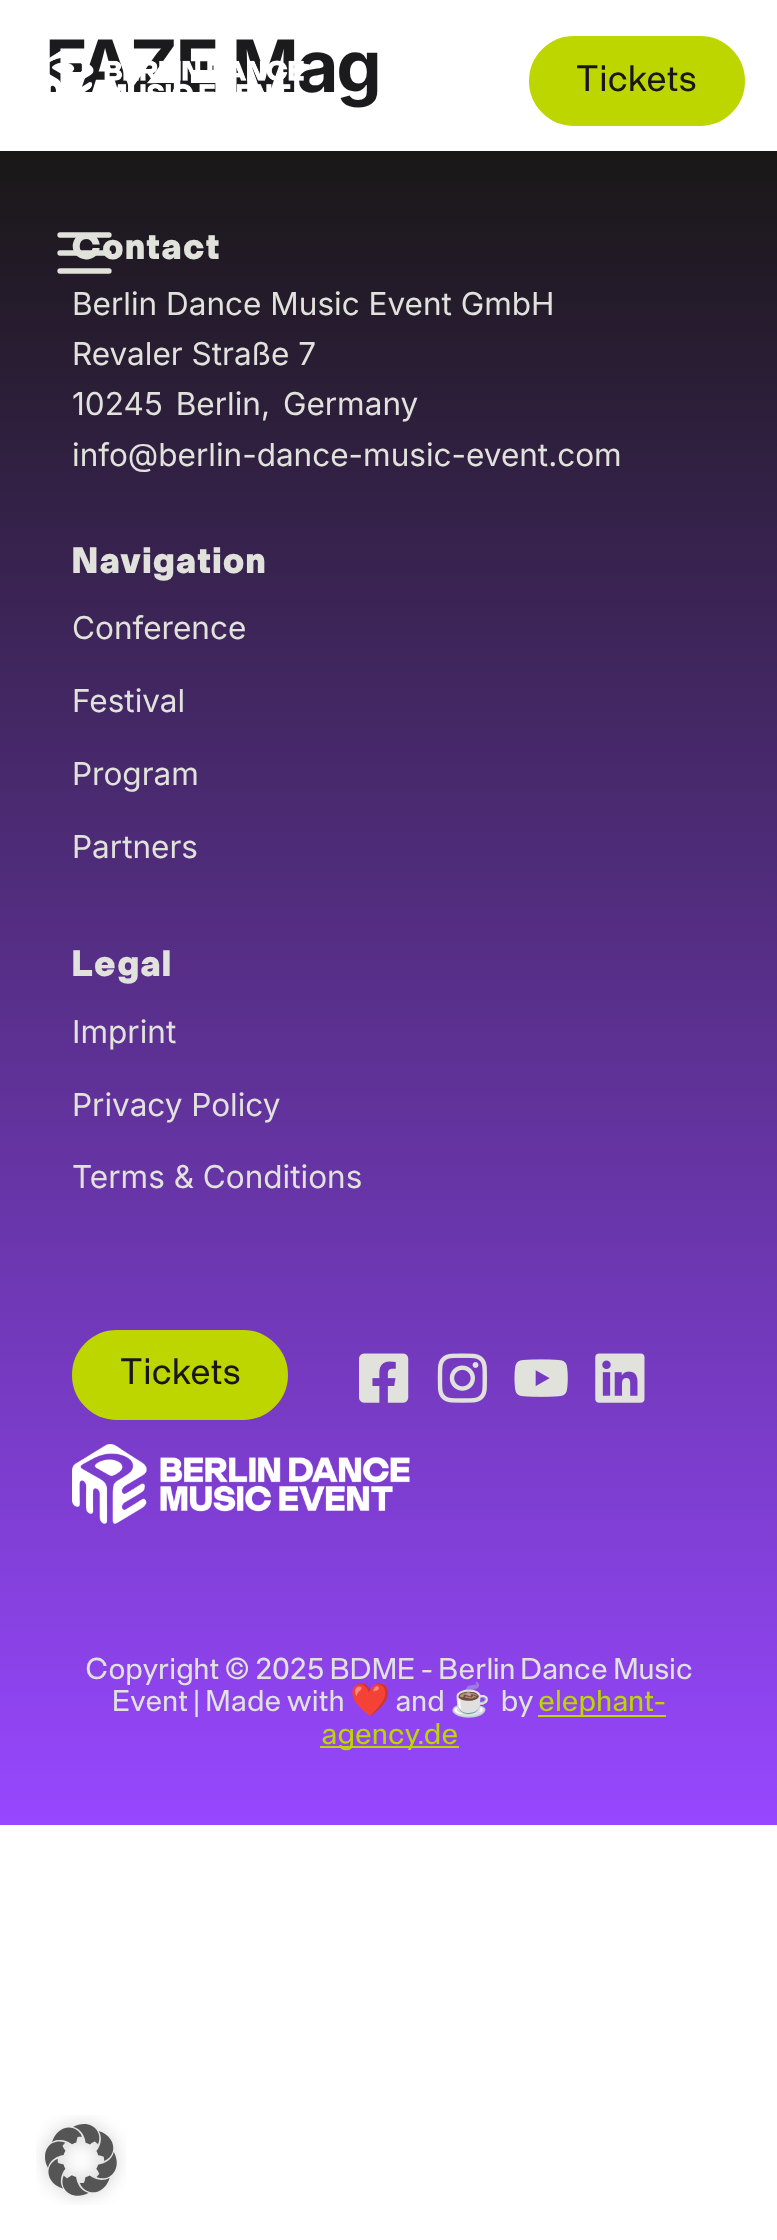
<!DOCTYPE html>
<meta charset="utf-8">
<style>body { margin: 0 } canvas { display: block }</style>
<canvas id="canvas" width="777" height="2240"></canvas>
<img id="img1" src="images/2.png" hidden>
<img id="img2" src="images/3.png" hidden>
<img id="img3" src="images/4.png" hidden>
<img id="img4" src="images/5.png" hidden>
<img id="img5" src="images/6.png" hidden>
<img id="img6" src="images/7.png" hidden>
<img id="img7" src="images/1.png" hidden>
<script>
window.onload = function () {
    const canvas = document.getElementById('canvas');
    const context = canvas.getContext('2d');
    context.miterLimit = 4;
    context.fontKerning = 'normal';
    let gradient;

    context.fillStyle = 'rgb(255, 255, 255)';
    context.fillRect(0, 0, 777, 2240);
    context.fillStyle = 'rgb(189, 214, 0)';
    context.beginPath();
    context.roundRect(530, 37, 214, 88, 44);
    context.fill();
    context.strokeStyle = 'rgb(189, 214, 0)';
    context.lineWidth = 2;
    context.stroke();
    gradient = context.createLinearGradient(389, 151, 389, 1825);
    gradient.addColorStop(0, 'rgb(25, 23, 22)');
    gradient.addColorStop(1, 'rgb(151, 71, 255)');
    context.fillStyle = gradient;
    context.fillRect(0, 151, 777, 1674);
    context.beginPath();
    context.moveTo(60, 235);
    context.lineTo(109, 235);
    context.moveTo(60, 253);
    context.lineTo(109, 253);
    context.moveTo(60, 271);
    context.lineTo(109, 271);
    context.strokeStyle = 'rgb(224, 226, 219)';
    context.lineWidth = 5.3;
    context.lineCap = 'round';
    context.lineJoin = 'round';
    context.stroke();
    context.fillStyle = 'rgb(189, 214, 0)';
    context.beginPath();
    context.roundRect(73, 1331, 214, 88, 44);
    context.fill();
    context.strokeStyle = 'rgb(189, 214, 0)';
    context.lineWidth = 2;
    context.lineJoin = 'miter';
    context.stroke();
    context.drawImage(document.getElementById('img1'), 359, 1353, 50, 50);
    context.drawImage(document.getElementById('img2'), 437, 1353, 50, 50);
    context.drawImage(document.getElementById('img3'), 514, 1359, 54, 38);
    context.drawImage(document.getElementById('img4'), 595, 1353, 50, 50);
    context.drawImage(document.getElementById('img5'), 72, 1444, 338, 80);
    context.fillRect(538, 1715, 128, 2);
    context.fillRect(320, 1746, 139, 2);
    context.drawImage(document.getElementById('img6'), 36, 2115, 90, 90);
    context.letterSpacing = '-2.25px';
    context.font = 'bold 72px Inter';
    context.fillStyle = 'rgb(27, 27, 29)';
    context.fillText('FAZE Mag', 45, 92);
    context.drawImage(document.getElementById('img7'), 49, 50, 255, 42);
    context.letterSpacing = '0px';
    context.font = '39.5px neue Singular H';
    context.fillStyle = 'rgb(25, 23, 22)';
    context.fillText('Tickets', 575, 91);
    context.letterSpacing = '2px';
    context.font = '900 39.5px neue Singular H';
    context.fillStyle = 'rgb(224, 226, 219)';
    context.fillText('Contact', 72, 259);
    context.letterSpacing = '0px';
    context.font = '31.5px Inter';
    context.fillText('Berlin Dance Music Event GmbH', 72, 315);
    context.fillText('Revaler Straße 7', 72, 365);
    context.wordSpacing = '4px';
    context.fillText('10245 Berlin, Germany', 72, 415);
    context.wordSpacing = '0px';
    context.fillText('info@berlin-dance-music-event.com', 72, 466);
    context.letterSpacing = '2px';
    context.font = '900 39.5px neue Singular H';
    context.fillText('Navigation', 72, 573);
    context.letterSpacing = '0px';
    context.font = '31.5px Inter';
    context.fillText('Conference', 72, 639);
    context.fillText('Festival', 72, 712);
    context.fillText('Program', 72, 785);
    context.fillText('Partners', 72, 858);
    context.letterSpacing = '2px';
    context.font = '900 39.5px neue Singular H';
    context.fillText('Legal', 72, 976);
    context.letterSpacing = '0px';
    context.font = '31.5px Inter';
    context.fillText('Imprint', 72, 1043);
    context.fillText('Privacy Policy', 72, 1116);
    context.fillText('Terms & Conditions', 72, 1188);
    context.font = '39.5px neue Singular H';
    context.fillStyle = 'rgb(25, 23, 22)';
    context.fillText('Tickets', 119, 1384);
    context.font = '32.4px neue Singular H';
    context.fillStyle = 'rgb(224, 226, 219)';
    context.fillText('Copyright © 2025 BDME - Berlin Dance Music', 85, 1679);
    context.fillText('Event | Made with', 112, 1711);
    context.font = '32.4px Noto Color Emoji';
    context.fillText('❤️', 350, 1711);
    context.font = '32.4px neue Singular H';
    context.fillText('and', 395, 1711);
    context.font = '32.4px Noto Color Emoji';
    context.fillText('☕', 450, 1711);
    context.font = '32.4px neue Singular H';
    context.fillText('by', 501, 1711);
    context.fillStyle = 'rgb(189, 214, 0)';
    context.fillText('elephant-', 538, 1711);
    context.fillText('agency.de', 321, 1744);
};
</script>
